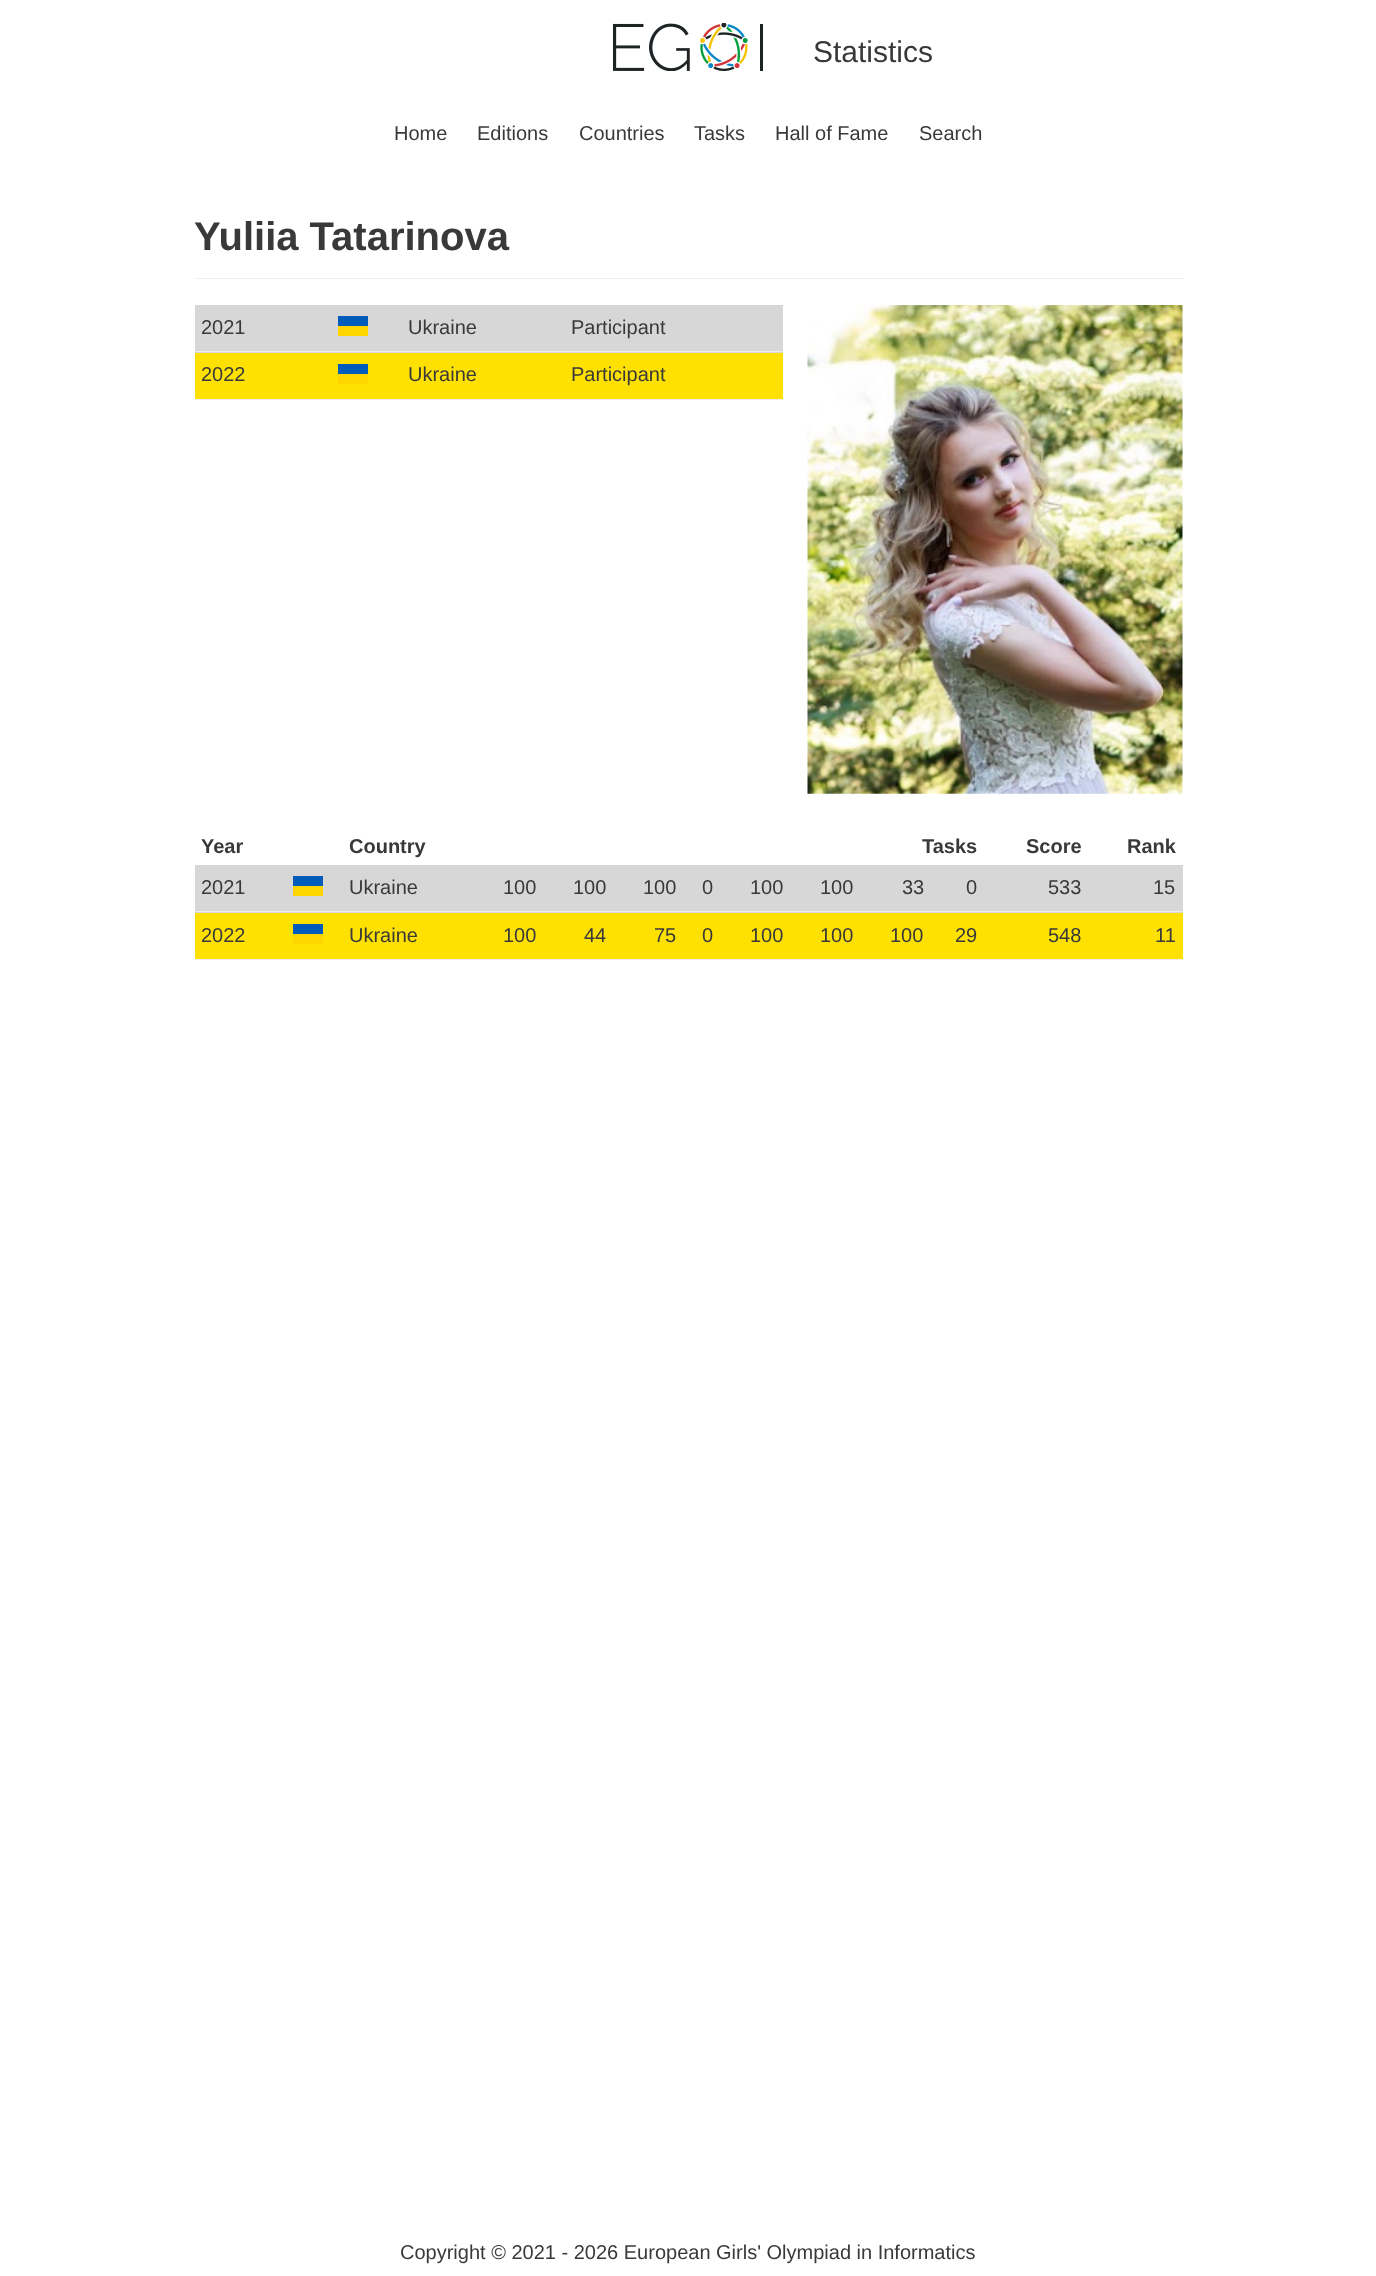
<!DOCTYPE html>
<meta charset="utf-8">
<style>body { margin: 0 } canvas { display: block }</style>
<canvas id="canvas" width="1376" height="2276"></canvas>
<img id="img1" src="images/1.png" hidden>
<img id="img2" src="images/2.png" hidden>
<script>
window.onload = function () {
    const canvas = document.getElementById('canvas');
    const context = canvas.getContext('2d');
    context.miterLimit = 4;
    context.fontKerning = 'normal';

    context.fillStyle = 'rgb(255, 255, 255)';
    context.fillRect(0, 0, 1376, 2276);
    context.drawImage(document.getElementById('img1'), 613, 23, 150, 48);
    context.fillStyle = 'rgb(237, 237, 237)';
    context.fillRect(195, 278, 988, 1);
    context.fillStyle = 'rgb(215, 215, 215)';
    context.fillRect(195, 305, 588, 48);
    context.fillStyle = 'rgb(237, 237, 237)';
    context.fillRect(195, 351, 588, 1);
    context.fillStyle = 'rgb(0, 91, 187)';
    context.fillRect(338, 316, 30, 10);
    context.fillStyle = 'rgb(255, 213, 0)';
    context.fillRect(338, 326, 30, 10);
    context.fillStyle = 'rgb(254, 225, 1)';
    context.fillRect(195, 353, 588, 46);
    context.fillStyle = 'rgb(237, 237, 237)';
    context.fillRect(195, 399, 588, 1);
    context.fillStyle = 'rgb(0, 91, 187)';
    context.fillRect(338, 364, 30, 10);
    context.fillStyle = 'rgb(255, 213, 0)';
    context.fillRect(338, 374, 30, 10);
    context.drawImage(document.getElementById('img2'), 807, 305, 376, 489);
    context.fillStyle = 'rgb(215, 215, 215)';
    context.fillRect(195, 865, 988, 48);
    context.fillStyle = 'rgb(237, 237, 237)';
    context.fillRect(195, 911, 988, 1);
    context.fillStyle = 'rgb(0, 91, 187)';
    context.fillRect(293, 876, 30, 10);
    context.fillStyle = 'rgb(255, 213, 0)';
    context.fillRect(293, 886, 30, 10);
    context.fillStyle = 'rgb(254, 225, 1)';
    context.fillRect(195, 913, 988, 46);
    context.fillStyle = 'rgb(237, 237, 237)';
    context.fillRect(195, 959, 988, 1);
    context.fillStyle = 'rgb(0, 91, 187)';
    context.fillRect(293, 924, 30, 10);
    context.fillStyle = 'rgb(255, 213, 0)';
    context.fillRect(293, 934, 30, 10);
    context.font = '30px Liberation Sans';
    context.fillStyle = 'rgb(57, 57, 57)';
    context.fillText('Statistics', 813, 62);
    context.font = '20px Liberation Sans';
    context.fillText('Home', 394, 140);
    context.fillText('Editions', 477, 140);
    context.fillText('Countries', 579, 140);
    context.fillText('Tasks', 694, 140);
    context.fillText('Hall of Fame', 775, 140);
    context.fillText('Search', 919, 140);
    context.font = 'bold 40px Liberation Sans';
    context.fillText('Yuliia Tatarinova', 194, 250);
    context.font = '20px Liberation Sans';
    context.fillText('2021', 201, 334);
    context.fillText('Ukraine', 408, 334);
    context.fillText('Participant', 571, 334);
    context.fillText('2022', 201, 381);
    context.fillText('Ukraine', 408, 381);
    context.fillText('Participant', 571, 381);
    context.font = 'bold 20px Liberation Sans';
    context.fillText('Year', 201, 853);
    context.fillText('Country', 349, 853);
    context.fillText('Tasks', 922, 853);
    context.fillText('Score', 1026, 853);
    context.fillText('Rank', 1127, 853);
    context.font = '20px Liberation Sans';
    context.fillText('2021', 201, 894);
    context.fillText('Ukraine', 349, 894);
    context.fillText('100', 503, 894);
    context.fillText('100', 573, 894);
    context.fillText('100', 643, 894);
    context.fillText('0', 702, 894);
    context.fillText('100', 750, 894);
    context.fillText('100', 820, 894);
    context.fillText('33', 902, 894);
    context.fillText('0', 966, 894);
    context.fillText('533', 1048, 894);
    context.fillText('15', 1153, 894);
    context.fillText('2022', 201, 942);
    context.fillText('Ukraine', 349, 942);
    context.fillText('100', 503, 942);
    context.fillText('44', 584, 942);
    context.fillText('75', 654, 942);
    context.fillText('0', 702, 942);
    context.fillText('100', 750, 942);
    context.fillText('100', 820, 942);
    context.fillText('100', 890, 942);
    context.fillText('29', 955, 942);
    context.fillText('548', 1048, 942);
    context.fillText('11', 1155, 942);
    context.fillText('Copyright © 2021 - 2026 European Girls\' Olympiad in Informatics', 400, 2259);
};
</script>
